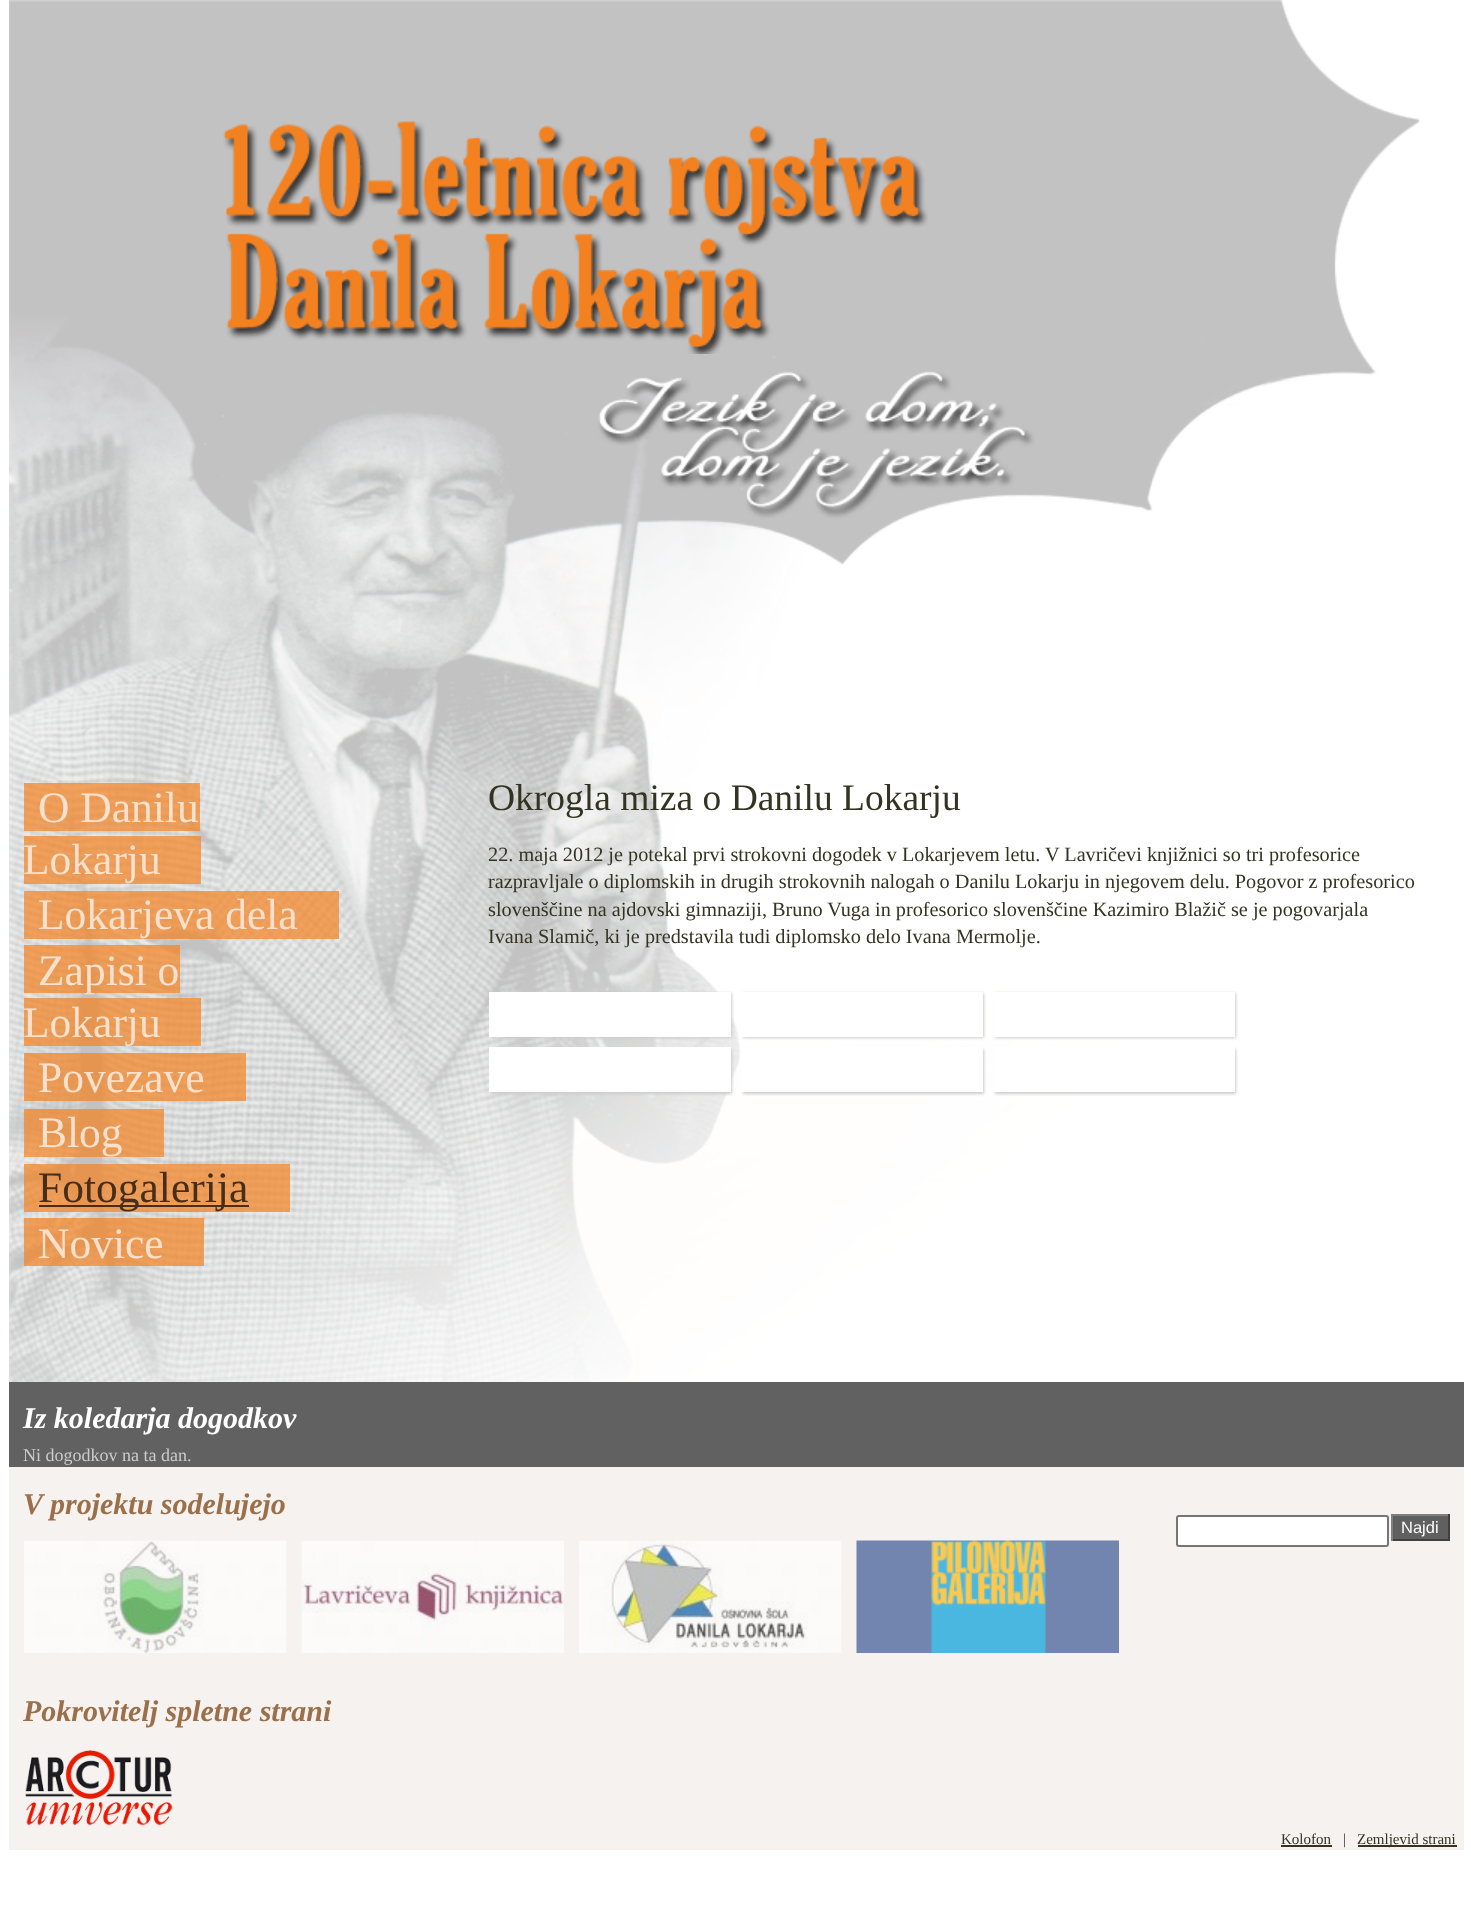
<!DOCTYPE html>
<meta charset="utf-8">
<style>body { margin: 0 } canvas { display: block }</style>
<canvas id="canvas" width="1471" height="1928"></canvas>
<img id="img1" src="images/1.png" hidden>
<img id="img2" src="images/2.png" hidden>
<img id="img3" src="images/3.png" hidden>
<img id="img4" src="images/4.png" hidden>
<img id="img5" src="images/5.png" hidden>
<img id="img6" src="images/6.png" hidden>
<img id="img7" src="images/7.png" hidden>
<script>
window.onload = function () {
    const canvas = document.getElementById('canvas');
    const context = canvas.getContext('2d');
    context.miterLimit = 4;
    context.fontKerning = 'normal';

    context.fillStyle = 'rgb(255, 255, 255)';
    context.fillRect(0, 0, 1471, 1928);
    context.drawImage(document.getElementById('img1'), 9, 0, 1411, 1382);
    context.drawImage(document.getElementById('img2'), 223, 121, 705, 233);
    context.fillStyle = 'rgba(244, 129, 32, 0.7)';
    context.fillRect(24, 783, 176, 48);
    context.fillRect(24, 836, 177, 48);
    context.fillRect(24, 891, 315, 48);
    context.fillRect(24, 945, 156, 48);
    context.fillRect(24, 998, 177, 48);
    context.fillRect(24, 1053, 222, 48);
    context.fillRect(24, 1109, 140, 48);
    context.fillRect(24, 1164, 266, 48);
    context.fillStyle = 'rgba(0, 0, 0, 0.7)';
    context.fillRect(39, 1205, 210, 2);
    context.fillStyle = 'rgba(244, 129, 32, 0.7)';
    context.fillRect(24, 1218, 180, 48);
    context.fillStyle = 'rgb(204, 204, 204)';
    context.filter = 'blur(1.5px)';
    context.beginPath();
    context.rect(491, 993, 241, 45);
    context.fill();
    context.filter = 'none';
    context.fillStyle = 'rgb(255, 255, 255)';
    context.fillRect(489, 992, 242, 45);
    context.fillStyle = 'rgb(204, 204, 204)';
    context.filter = 'blur(1.5px)';
    context.beginPath();
    context.rect(743, 993, 241, 45);
    context.fill();
    context.filter = 'none';
    context.fillStyle = 'rgb(255, 255, 255)';
    context.fillRect(741, 992, 242, 45);
    context.fillStyle = 'rgb(204, 204, 204)';
    context.filter = 'blur(1.5px)';
    context.beginPath();
    context.rect(995, 993, 241, 45);
    context.fill();
    context.filter = 'none';
    context.fillStyle = 'rgb(255, 255, 255)';
    context.fillRect(993, 992, 242, 45);
    context.fillStyle = 'rgb(204, 204, 204)';
    context.filter = 'blur(1.5px)';
    context.beginPath();
    context.rect(491, 1049, 241, 45);
    context.fill();
    context.filter = 'none';
    context.fillStyle = 'rgb(255, 255, 255)';
    context.fillRect(489, 1047, 242, 45);
    context.fillStyle = 'rgb(204, 204, 204)';
    context.filter = 'blur(1.5px)';
    context.beginPath();
    context.rect(743, 1049, 241, 45);
    context.fill();
    context.filter = 'none';
    context.fillStyle = 'rgb(255, 255, 255)';
    context.fillRect(741, 1047, 242, 45);
    context.fillStyle = 'rgb(204, 204, 204)';
    context.filter = 'blur(1.5px)';
    context.beginPath();
    context.rect(995, 1049, 241, 45);
    context.fill();
    context.filter = 'none';
    context.fillStyle = 'rgb(255, 255, 255)';
    context.fillRect(993, 1047, 242, 45);
    context.fillStyle = 'rgb(97, 97, 97)';
    context.fillRect(9, 1382, 1455, 85);
    context.fillStyle = 'rgb(245, 242, 239)';
    context.fillRect(9, 1467, 1455, 383);
    context.fillStyle = 'rgb(255, 255, 255)';
    context.beginPath();
    context.roundRect(1177, 1516, 211, 30, 2);
    context.fill();
    context.strokeStyle = 'rgb(118, 118, 118)';
    context.lineWidth = 2;
    context.stroke();
    context.fillStyle = 'rgb(96, 96, 96)';
    context.fillRect(1393, 1516, 55, 23);
    context.fillStyle = 'rgb(128, 128, 128)';
    context.fillRect(1391, 1514, 58, 2);
    context.fillStyle = 'rgb(64, 64, 64)';
    context.fillRect(1448, 1514, 2, 27);
    context.fillRect(1391, 1539, 58, 2);
    context.fillStyle = 'rgb(128, 128, 128)';
    context.fillRect(1391, 1514, 2, 27);
    context.drawImage(document.getElementById('img3'), 24, 1540, 263, 113);
    context.drawImage(document.getElementById('img4'), 301, 1540, 263, 113);
    context.drawImage(document.getElementById('img5'), 579, 1540, 263, 113);
    context.drawImage(document.getElementById('img6'), 856, 1540, 263, 113);
    context.drawImage(document.getElementById('img7'), 25, 1750, 148, 76);
    context.fillStyle = 'rgb(51, 51, 34)';
    context.fillRect(1281, 1845, 51, 2);
    context.fillRect(1358, 1845, 99, 2);
    context.font = '43.5px Liberation Serif';
    context.fillStyle = 'rgb(249, 225, 205)';
    context.fillText('O Danilu', 38, 822);
    context.fillText('Lokarju', 23, 874);
    context.fillText('Lokarjeva dela', 38, 929);
    context.fillText('Zapisi o', 38, 985);
    context.fillText('Lokarju', 23, 1037);
    context.fillText('Povezave', 38, 1092);
    context.fillText('Blog', 38, 1147);
    context.fillStyle = 'rgb(70, 46, 26)';
    context.fillText('Fotogalerija', 38, 1202);
    context.fillStyle = 'rgb(249, 225, 205)';
    context.fillText('Novice', 38, 1258);
    context.font = '37.5px Liberation Serif';
    context.fillStyle = 'rgb(51, 51, 34)';
    context.fillText('Okrogla miza o Danilu Lokarju', 488, 810);
    context.font = '20.25px Liberation Serif';
    context.fillText('22. maja 2012 je potekal prvi strokovni dogodek v Lokarjevem letu. V Lavričevi knjižnici so tri profesorice', 488, 861);
    context.fillText('razpravljale o diplomskih in drugih strokovnih nalogah o Danilu Lokarju in njegovem delu. Pogovor z profesorico', 488, 888);
    context.fillText('slovenščine na ajdovski gimnaziji, Bruno Vuga in profesorico slovenščine Kazimiro Blažič se je pogovarjala', 488, 916);
    context.fillText('Ivana Slamič, ki je predstavila tudi diplomsko delo Ivana Mermolje.', 488, 943);
    context.font = 'italic bold 30px Liberation Serif';
    context.fillStyle = 'rgb(255, 255, 255)';
    context.fillText('Iz koledarja dogodkov', 23, 1428);
    context.font = '18px Liberation Serif';
    context.fillStyle = 'rgb(204, 204, 204)';
    context.fillText('Ni dogodkov na ta dan.', 23, 1461);
    context.font = 'italic bold 30px Liberation Serif';
    context.fillStyle = 'rgb(155, 111, 74)';
    context.fillText('V projektu sodelujejo', 23, 1514);
    context.font = '16.5px Liberation Sans';
    context.fillStyle = 'rgb(255, 255, 255)';
    context.fillText('Najdi', 1401, 1533);
    context.font = 'italic bold 30px Liberation Serif';
    context.fillStyle = 'rgb(155, 111, 74)';
    context.fillText('Pokrovitelj spletne strani', 23, 1721);
    context.font = '15px Liberation Serif';
    context.fillStyle = 'rgb(51, 51, 34)';
    context.fillText('Kolofon', 1281, 1844);
    context.fillStyle = 'rgb(51, 51, 51)';
    context.fillText('|', 1343, 1844);
    context.fillStyle = 'rgb(51, 51, 34)';
    context.fillText('Zemljevid strani', 1357, 1844);
};
</script>
